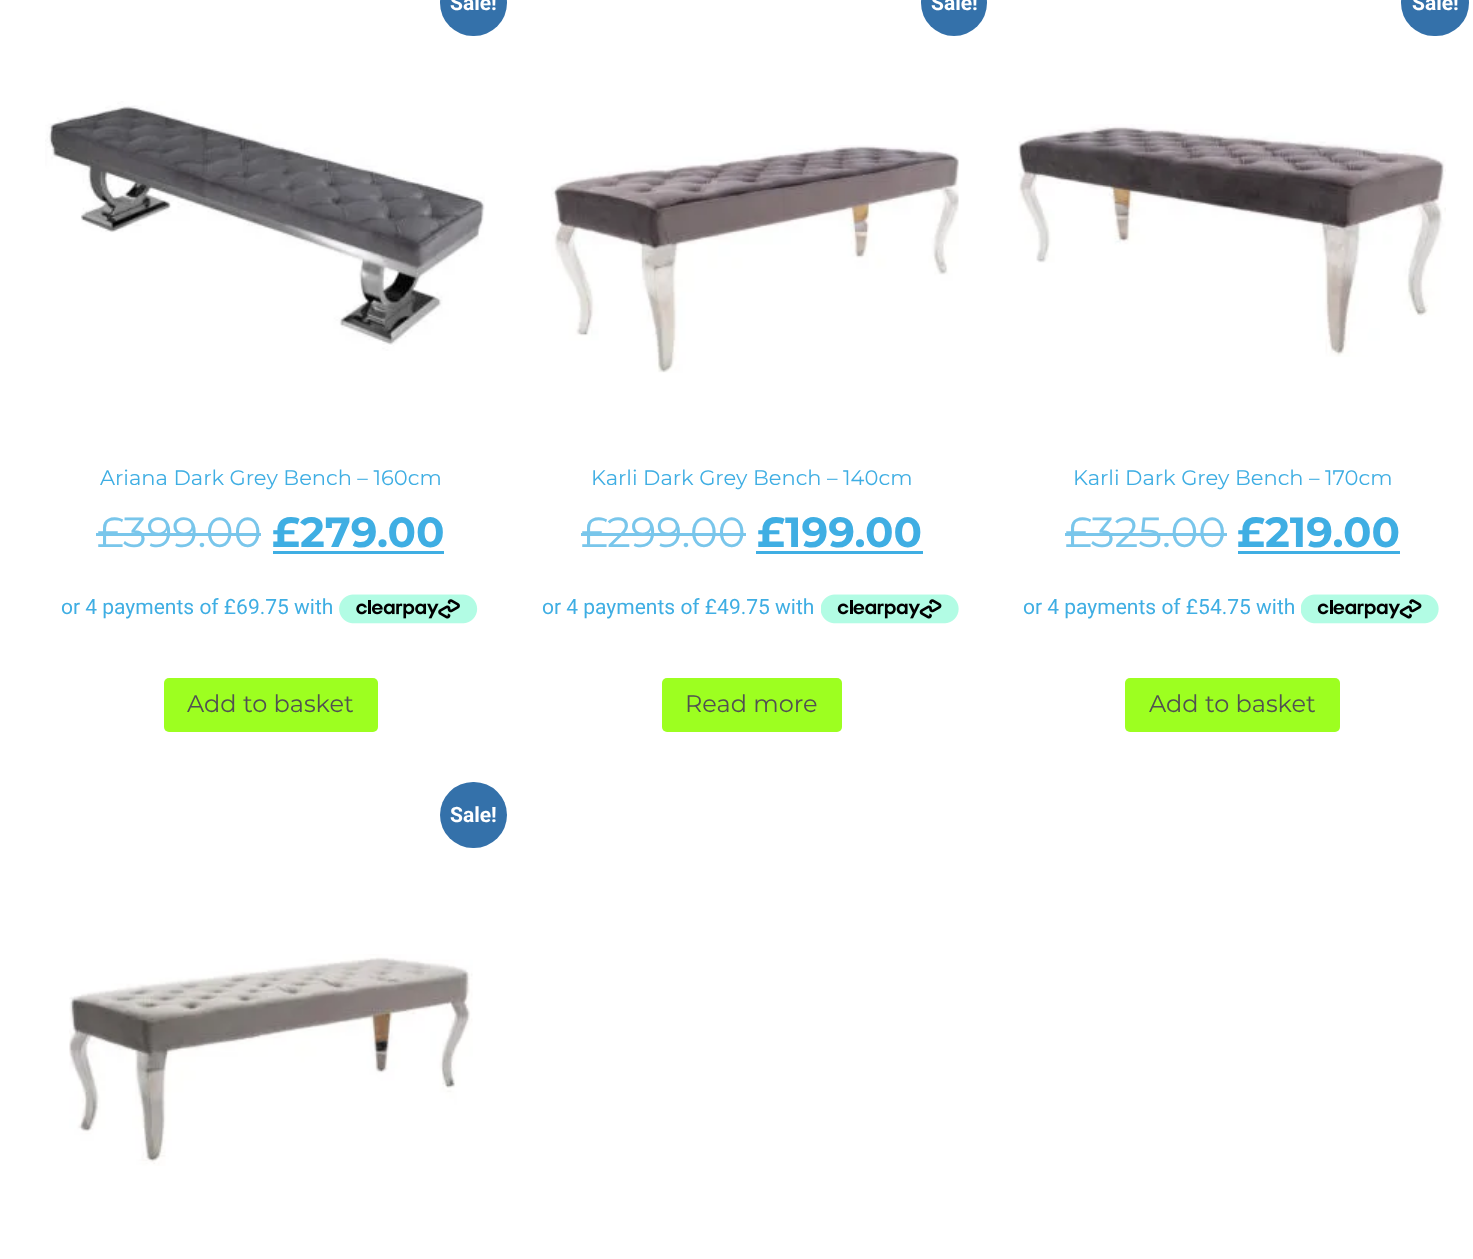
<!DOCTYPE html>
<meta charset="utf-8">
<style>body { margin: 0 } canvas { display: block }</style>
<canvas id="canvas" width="1473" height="1259"></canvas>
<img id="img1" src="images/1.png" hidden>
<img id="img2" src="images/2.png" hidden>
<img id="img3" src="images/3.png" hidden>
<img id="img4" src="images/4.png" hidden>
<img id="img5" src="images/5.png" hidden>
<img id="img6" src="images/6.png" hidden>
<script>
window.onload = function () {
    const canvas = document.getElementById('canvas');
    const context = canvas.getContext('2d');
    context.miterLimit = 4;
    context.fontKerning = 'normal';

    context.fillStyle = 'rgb(255, 255, 255)';
    context.fillRect(0, 0, 1473, 1259);
    context.fillStyle = 'rgb(52, 113, 170)';
    context.beginPath();
    context.roundRect(440, -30, 67, 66, 33);
    context.fill();
    context.drawImage(document.getElementById('img1'), 45, 101, 440, 250);
    context.fillStyle = 'rgb(121, 198, 235)';
    context.fillRect(96, 533, 27, 3);
    context.fillRect(123, 533, 138, 3);
    context.fillStyle = 'rgb(63, 174, 227)';
    context.fillRect(273, 551, 171, 3);
    context.drawImage(document.getElementById('img2'), 339, 594, 139, 30);
    context.fillStyle = 'rgb(157, 255, 32)';
    context.beginPath();
    context.roundRect(164, 678, 214, 54, 5);
    context.fill();
    context.fillStyle = 'rgb(52, 113, 170)';
    context.beginPath();
    context.arc(954, 3, 33, 0, 2 * Math.PI);
    context.fill();
    context.drawImage(document.getElementById('img3'), 551, 145, 408, 228);
    context.fillStyle = 'rgb(121, 198, 235)';
    context.fillRect(581, 533, 27, 3);
    context.fillRect(608, 533, 138, 3);
    context.fillStyle = 'rgb(63, 174, 227)';
    context.fillRect(756, 551, 167, 3);
    context.drawImage(document.getElementById('img4'), 821, 594, 138, 30);
    context.fillStyle = 'rgb(157, 255, 32)';
    context.beginPath();
    context.roundRect(662, 678, 180, 54, 5);
    context.fill();
    context.fillStyle = 'rgb(52, 113, 170)';
    context.beginPath();
    context.roundRect(1401, -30, 68, 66, 33);
    context.fill();
    context.drawImage(document.getElementById('img5'), 1018, 124, 428, 233);
    context.fillStyle = 'rgb(121, 198, 235)';
    context.fillRect(1065, 533, 27, 3);
    context.fillRect(1092, 533, 135, 3);
    context.fillStyle = 'rgb(63, 174, 227)';
    context.fillRect(1238, 551, 162, 3);
    context.drawImage(document.getElementById('img4'), 1301, 594, 138, 30);
    context.fillStyle = 'rgb(157, 255, 32)';
    context.beginPath();
    context.roundRect(1125, 678, 215, 54, 5);
    context.fill();
    context.fillStyle = 'rgb(52, 113, 170)';
    context.beginPath();
    context.roundRect(440, 782, 67, 66, 33);
    context.fill();
    context.drawImage(document.getElementById('img6'), 69, 954, 404, 212);
    context.font = 'bold 21px Roboto';
    context.fillStyle = 'rgb(255, 255, 255)';
    context.fillText('Sale!', 450, 10);
    context.font = '21px Montserrat';
    context.fillStyle = 'rgb(63, 174, 227)';
    context.fillText('Ariana Dark Grey Bench – 160cm', 100, 485);
    context.font = '42px Montserrat';
    context.fillStyle = 'rgb(121, 198, 235)';
    context.fillText('£', 97, 547);
    context.fillText('399.00', 123, 547);
    context.font = 'bold 42px Montserrat';
    context.fillStyle = 'rgb(63, 174, 227)';
    context.fillText('£', 272, 547);
    context.fillText('279.00', 300, 547);
    context.font = '21px Roboto';
    context.fillText('or 4 payments of £69.75 with', 61, 614);
    context.font = '24px Montserrat';
    context.fillStyle = 'rgb(81, 81, 81)';
    context.fillText('Add to basket', 187, 712);
    context.font = 'bold 21px Roboto';
    context.fillStyle = 'rgb(255, 255, 255)';
    context.fillText('Sale!', 931, 10);
    context.font = '21px Montserrat';
    context.fillStyle = 'rgb(63, 174, 227)';
    context.fillText('Karli Dark Grey Bench – 140cm', 591, 485);
    context.font = '42px Montserrat';
    context.fillStyle = 'rgb(121, 198, 235)';
    context.fillText('£', 581, 547);
    context.fillText('299.00', 607, 547);
    context.font = 'bold 42px Montserrat';
    context.fillStyle = 'rgb(63, 174, 227)';
    context.fillText('£', 757, 547);
    context.fillText('199.00', 785, 547);
    context.font = '21px Roboto';
    context.fillText('or 4 payments of £49.75 with', 542, 614);
    context.font = '24px Montserrat';
    context.fillStyle = 'rgb(81, 81, 81)';
    context.fillText('Read more', 685, 712);
    context.font = 'bold 21px Roboto';
    context.fillStyle = 'rgb(255, 255, 255)';
    context.fillText('Sale!', 1412, 10);
    context.font = '21px Montserrat';
    context.fillStyle = 'rgb(63, 174, 227)';
    context.fillText('Karli Dark Grey Bench – 170cm', 1073, 485);
    context.font = '42px Montserrat';
    context.fillStyle = 'rgb(121, 198, 235)';
    context.fillText('£', 1065, 547);
    context.fillText('325.00', 1091, 547);
    context.font = 'bold 42px Montserrat';
    context.fillStyle = 'rgb(63, 174, 227)';
    context.fillText('£', 1237, 547);
    context.fillText('219.00', 1265, 547);
    context.font = '21px Roboto';
    context.fillText('or 4 payments of £54.75 with', 1023, 614);
    context.font = '24px Montserrat';
    context.fillStyle = 'rgb(81, 81, 81)';
    context.fillText('Add to basket', 1149, 712);
    context.font = 'bold 21px Roboto';
    context.fillStyle = 'rgb(255, 255, 255)';
    context.fillText('Sale!', 450, 822);
};
</script>
